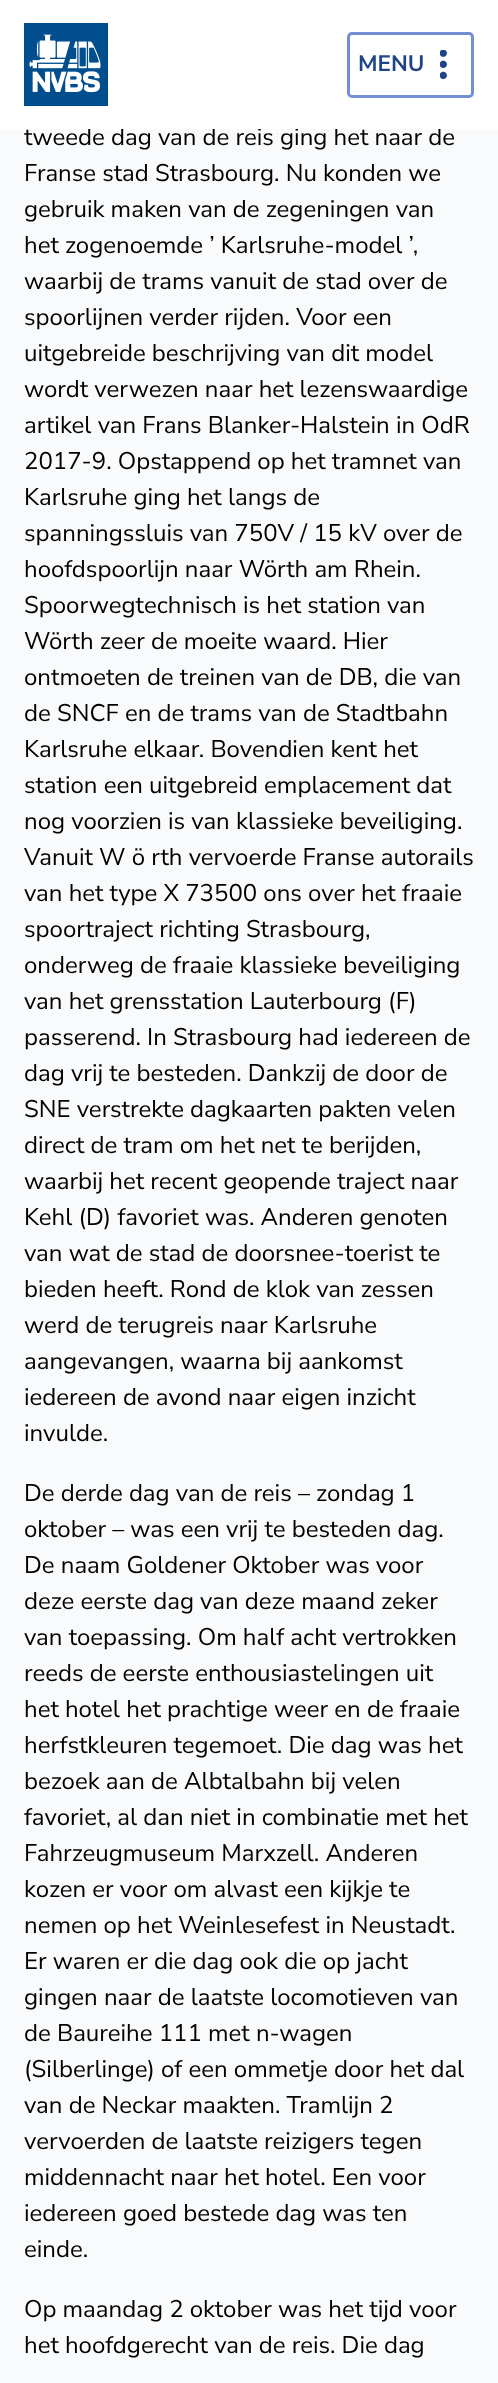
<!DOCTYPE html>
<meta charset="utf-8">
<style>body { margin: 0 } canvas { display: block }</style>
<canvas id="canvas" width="498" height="2383"></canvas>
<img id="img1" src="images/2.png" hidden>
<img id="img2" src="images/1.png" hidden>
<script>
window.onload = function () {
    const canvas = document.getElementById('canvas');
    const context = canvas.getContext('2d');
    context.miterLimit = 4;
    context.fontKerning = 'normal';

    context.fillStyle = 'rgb(249, 250, 251)';
    context.fillRect(0, 0, 498, 2383);
    context.font = '24px Nunito Sans';
    context.fillStyle = 'rgb(0, 0, 0)';
    context.fillText('tweede dag van de reis ging het naar de', 24, 145);
    context.fillStyle = 'rgb(255, 255, 255)';
    context.fillRect(0, 0, 498, 129);
    context.beginPath();
    context.roundRect(348.5, 33.5, 124, 63, 3.5);
    context.strokeStyle = 'rgb(114, 143, 213)';
    context.lineWidth = 3;
    context.stroke();
    context.drawImage(document.getElementById('img1'), 440, 50, 7, 30);
    context.font = 'bold 22.5px Nunito Sans';
    context.fillStyle = 'rgb(31, 69, 136)';
    context.fillText('MENU', 358, 71);
    context.drawImage(document.getElementById('img2'), 24, 23, 84, 83);
    context.font = '24px Nunito Sans';
    context.fillStyle = 'rgb(0, 0, 0)';
    context.fillText('Franse stad Strasbourg. Nu konden we', 24, 181);
    context.fillText('gebruik maken van de zegeningen van', 24, 217);
    context.fillText('het zogenoemde ’ Karlsruhe-model ’,', 24, 253);
    context.fillText('waarbij de trams vanuit de stad over de', 24, 289);
    context.fillText('spoorlijnen verder rijden. Voor een', 24, 325);
    context.fillText('uitgebreide beschrijving van dit model', 24, 361);
    context.fillText('wordt verwezen naar het lezenswaardige', 24, 397);
    context.fillText('artikel van Frans Blanker-Halstein in OdR', 24, 433);
    context.fillText('2017-9. Opstappend op het tramnet van', 24, 469);
    context.fillText('Karlsruhe ging het langs de', 24, 505);
    context.fillText('spanningssluis van 750V / 15 kV over de', 24, 541);
    context.fillText('hoofdspoorlijn naar Wörth am Rhein.', 24, 577);
    context.fillText('Spoorwegtechnisch is het station van', 24, 613);
    context.fillText('Wörth zeer de moeite waard. Hier', 24, 649);
    context.fillText('ontmoeten de treinen van de DB, die van', 24, 685);
    context.fillText('de SNCF en de trams van de Stadtbahn', 24, 721);
    context.fillText('Karlsruhe elkaar. Bovendien kent het', 24, 757);
    context.fillText('station een uitgebreid emplacement dat', 24, 793);
    context.fillText('nog voorzien is van klassieke beveiliging.', 24, 829);
    context.fillText('Vanuit W ö rth vervoerde Franse autorails', 24, 865);
    context.fillText('van het type X 73500 ons over het fraaie', 24, 901);
    context.fillText('spoortraject richting Strasbourg,', 24, 937);
    context.fillText('onderweg de fraaie klassieke beveiliging', 24, 973);
    context.fillText('van het grensstation Lauterbourg (F)', 24, 1009);
    context.fillText('passerend. In Strasbourg had iedereen de', 24, 1045);
    context.fillText('dag vrij te besteden. Dankzij de door de', 24, 1081);
    context.fillText('SNE verstrekte dagkaarten pakten velen', 24, 1117);
    context.fillText('direct de tram om het net te berijden,', 24, 1153);
    context.fillText('waarbij het recent geopende traject naar', 24, 1189);
    context.fillText('Kehl (D) favoriet was. Anderen genoten', 24, 1225);
    context.fillText('van wat de stad de doorsnee-toerist te', 24, 1261);
    context.fillText('bieden heeft. Rond de klok van zessen', 24, 1297);
    context.fillText('werd de terugreis naar Karlsruhe', 24, 1333);
    context.fillText('aangevangen, waarna bij aankomst', 24, 1369);
    context.fillText('iedereen de avond naar eigen inzicht', 24, 1405);
    context.fillText('invulde.', 24, 1441);
    context.fillText('De derde dag van de reis – zondag 1', 24, 1501);
    context.fillText('oktober – was een vrij te besteden dag.', 24, 1537);
    context.fillText('De naam Goldener Oktober was voor', 24, 1573);
    context.fillText('deze eerste dag van deze maand zeker', 24, 1609);
    context.fillText('van toepassing. Om half acht vertrokken', 24, 1645);
    context.fillText('reeds de eerste enthousiastelingen uit', 24, 1681);
    context.fillText('het hotel het prachtige weer en de fraaie', 24, 1717);
    context.fillText('herfstkleuren tegemoet. Die dag was het', 24, 1753);
    context.fillText('bezoek aan de Albtalbahn bij velen', 24, 1789);
    context.fillText('favoriet, al dan niet in combinatie met het', 24, 1825);
    context.fillText('Fahrzeugmuseum Marxzell. Anderen', 24, 1861);
    context.fillText('kozen er voor om alvast een kijkje te', 24, 1897);
    context.fillText('nemen op het Weinlesefest in Neustadt.', 24, 1933);
    context.fillText('Er waren er die dag ook die op jacht', 24, 1969);
    context.fillText('gingen naar de laatste locomotieven van', 24, 2005);
    context.fillText('de Baureihe 111 met n-wagen', 24, 2041);
    context.fillText('(Silberlinge) of een ommetje door het dal', 24, 2077);
    context.fillText('van de Neckar maakten. Tramlijn 2', 24, 2113);
    context.fillText('vervoerden de laatste reizigers tegen', 24, 2149);
    context.fillText('middennacht naar het hotel. Een voor', 24, 2185);
    context.fillText('iedereen goed bestede dag was ten', 24, 2221);
    context.fillText('einde.', 24, 2257);
    context.fillText('Op maandag 2 oktober was het tijd voor', 24, 2317);
    context.fillText('het hoofdgerecht van de reis. Die dag', 24, 2353);
};
</script>
